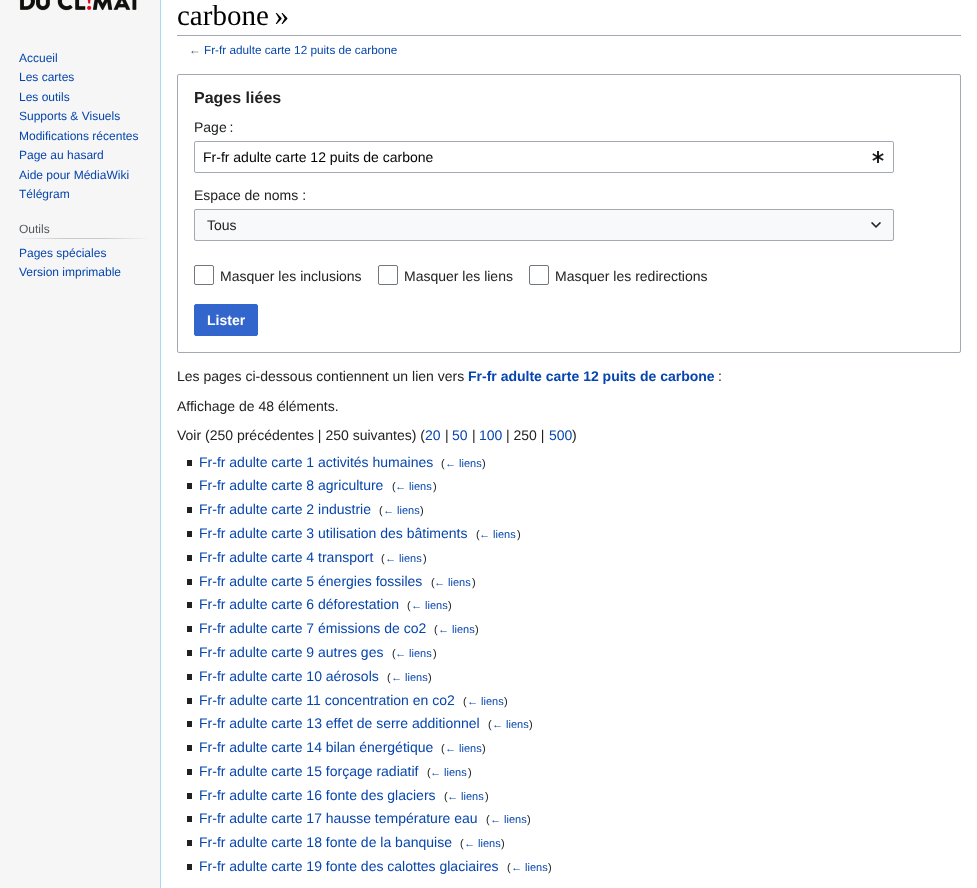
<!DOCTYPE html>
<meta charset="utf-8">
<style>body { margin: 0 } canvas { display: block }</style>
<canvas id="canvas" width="977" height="888"></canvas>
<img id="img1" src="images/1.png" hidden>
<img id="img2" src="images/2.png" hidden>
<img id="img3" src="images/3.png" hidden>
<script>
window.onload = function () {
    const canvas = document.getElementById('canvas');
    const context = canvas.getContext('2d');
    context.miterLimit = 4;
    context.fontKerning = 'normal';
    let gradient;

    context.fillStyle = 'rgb(246, 246, 246)';
    context.fillRect(0, 0, 977, 888);
    context.drawImage(document.getElementById('img1'), 19, 0, 118, 11);
    gradient = context.createLinearGradient(19, 239, 150, 239);
    gradient.addColorStop(0, 'rgb(246, 246, 246)');
    gradient.addColorStop(0.33, 'rgb(200, 204, 209)');
    gradient.addColorStop(0.66, 'rgb(200, 204, 209)');
    gradient.addColorStop(1, 'rgb(246, 246, 246)');
    context.fillStyle = gradient;
    context.fillRect(19, 238, 131, 1);
    context.fillStyle = 'rgb(255, 255, 255)';
    context.fillRect(161, 0, 816, 888);
    context.fillStyle = 'rgb(167, 215, 249)';
    context.fillRect(160, 0, 1, 888);
    context.fillStyle = 'rgb(162, 169, 177)';
    context.fillRect(177, 35, 784, 1);
    context.beginPath();
    context.roundRect(177.5, 74.5, 783, 278, 1.5);
    context.strokeStyle = 'rgb(162, 169, 177)';
    context.stroke();
    context.beginPath();
    context.roundRect(194.5, 141.5, 699, 31, 1.5);
    context.stroke();
    context.drawImage(document.getElementById('img2'), 872, 151, 12, 12);
    context.fillStyle = 'rgb(248, 249, 250)';
    context.fillRect(194, 209, 700, 32);
    context.beginPath();
    context.roundRect(194.5, 209.5, 699, 31, 1.5);
    context.stroke();
    context.drawImage(document.getElementById('img3'), 871, 222, 10, 6);
    context.beginPath();
    context.roundRect(194.5, 265.5, 19, 19, 1.5);
    context.strokeStyle = 'rgb(114, 119, 125)';
    context.stroke();
    context.beginPath();
    context.roundRect(378.5, 265.5, 19, 19, 1.5);
    context.stroke();
    context.beginPath();
    context.roundRect(529.5, 265.5, 19, 19, 1.5);
    context.stroke();
    context.fillStyle = 'rgb(51, 102, 204)';
    context.beginPath();
    context.roundRect(194.5, 304.5, 63, 31, 1.5);
    context.fill();
    context.strokeStyle = 'rgb(51, 102, 204)';
    context.stroke();
    context.fillStyle = 'rgb(32, 33, 34)';
    context.fillRect(187, 460, 5, 6);
    context.fillRect(187, 483, 5, 6);
    context.fillRect(187, 507, 5, 6);
    context.fillRect(187, 531, 5, 6);
    context.fillRect(187, 555, 5, 6);
    context.fillRect(187, 579, 5, 6);
    context.fillRect(187, 602, 5, 6);
    context.fillRect(187, 626, 5, 6);
    context.fillRect(187, 650, 5, 6);
    context.fillRect(187, 674, 5, 6);
    context.fillRect(187, 698, 5, 6);
    context.fillRect(187, 721, 5, 6);
    context.fillRect(187, 745, 5, 6);
    context.fillRect(187, 769, 5, 6);
    context.fillRect(187, 793, 5, 6);
    context.fillRect(187, 816, 5, 6);
    context.fillRect(187, 840, 5, 6);
    context.fillRect(187, 864, 5, 6);
    context.font = '12px Liberation Sans';
    context.fillStyle = 'rgb(6, 69, 173)';
    context.fillText('Accueil', 19, 62);
    context.fillText('Les cartes', 19, 81);
    context.fillText('Les outils', 19, 101);
    context.fillText('Supports & Visuels', 19, 120);
    context.fillText('Modifications récentes', 19, 140);
    context.fillText('Page au hasard', 19, 159);
    context.fillText('Aide pour MédiaWiki', 19, 179);
    context.fillText('Télégram', 19, 198);
    context.fillStyle = 'rgb(84, 89, 93)';
    context.fillText('Outils', 19, 233);
    context.fillStyle = 'rgb(6, 69, 173)';
    context.fillText('Pages spéciales', 19, 257);
    context.fillText('Version imprimable', 19, 276);
    context.font = '29px Liberation Serif';
    context.fillStyle = 'rgb(0, 0, 0)';
    context.fillText('carbone »', 177, 25);
    context.font = '11.75px Liberation Sans';
    context.fillStyle = 'rgb(84, 89, 93)';
    context.fillText('←', 189, 54);
    context.fillStyle = 'rgb(6, 69, 173)';
    context.fillText('Fr-fr adulte carte 12 puits de carbone', 204, 54);
    context.font = 'bold 16px Liberation Sans';
    context.fillStyle = 'rgb(32, 33, 34)';
    context.fillText('Pages liées', 194, 103);
    context.font = '14px Liberation Sans';
    context.fillText('Page :', 194, 132);
    context.fillStyle = 'rgb(0, 0, 0)';
    context.fillText('Fr-fr adulte carte 12 puits de carbone', 203, 162);
    context.fillStyle = 'rgb(32, 33, 34)';
    context.fillText('Espace de noms :', 194, 200);
    context.fillText('Tous', 207, 230);
    context.fillText('Masquer les inclusions', 220, 281);
    context.fillText('Masquer les liens', 404, 281);
    context.fillText('Masquer les redirections', 555, 281);
    context.font = 'bold 14px Liberation Sans';
    context.fillStyle = 'rgb(255, 255, 255)';
    context.fillText('Lister', 207, 325);
    context.font = '14px Liberation Sans';
    context.fillStyle = 'rgb(32, 33, 34)';
    context.fillText('Les pages ci-dessous contiennent un lien vers', 177, 381);
    context.font = 'bold 14px Liberation Sans';
    context.fillStyle = 'rgb(6, 69, 173)';
    context.fillText('Fr-fr adulte carte 12 puits de carbone', 468, 381);
    context.font = '14px Liberation Sans';
    context.fillStyle = 'rgb(32, 33, 34)';
    context.fillText(':', 718, 381);
    context.fillText('Affichage de 48 éléments.', 177, 411);
    context.fillText('Voir (250 précédentes | 250 suivantes) (', 177, 440);
    context.fillStyle = 'rgb(6, 69, 173)';
    context.fillText('20', 425, 440);
    context.fillStyle = 'rgb(32, 33, 34)';
    context.fillText('|', 445, 440);
    context.fillStyle = 'rgb(6, 69, 173)';
    context.fillText('50', 452, 440);
    context.fillStyle = 'rgb(32, 33, 34)';
    context.fillText('|', 472, 440);
    context.fillStyle = 'rgb(6, 69, 173)';
    context.fillText('100', 479, 440);
    context.fillStyle = 'rgb(32, 33, 34)';
    context.fillText('| 250 |', 506, 440);
    context.fillStyle = 'rgb(6, 69, 173)';
    context.fillText('500', 549, 440);
    context.fillStyle = 'rgb(32, 33, 34)';
    context.fillText(')', 572, 440);
    context.fillStyle = 'rgb(6, 69, 173)';
    context.fillText('Fr-fr adulte carte 1 activités humaines', 199, 467);
    context.font = '11px Liberation Sans';
    context.fillStyle = 'rgb(32, 33, 34)';
    context.fillText('(', 441, 467);
    context.fillStyle = 'rgb(6, 69, 173)';
    context.fillText('← liens', 445, 467);
    context.fillStyle = 'rgb(32, 33, 34)';
    context.fillText(')', 482, 467);
    context.font = '14px Liberation Sans';
    context.fillStyle = 'rgb(6, 69, 173)';
    context.fillText('Fr-fr adulte carte 8 agriculture', 199, 490);
    context.font = '11px Liberation Sans';
    context.fillStyle = 'rgb(32, 33, 34)';
    context.fillText('(', 392, 490);
    context.fillStyle = 'rgb(6, 69, 173)';
    context.fillText('← liens', 395, 490);
    context.fillStyle = 'rgb(32, 33, 34)';
    context.fillText(')', 433, 490);
    context.font = '14px Liberation Sans';
    context.fillStyle = 'rgb(6, 69, 173)';
    context.fillText('Fr-fr adulte carte 2 industrie', 199, 514);
    context.font = '11px Liberation Sans';
    context.fillStyle = 'rgb(32, 33, 34)';
    context.fillText('(', 379, 514);
    context.fillStyle = 'rgb(6, 69, 173)';
    context.fillText('← liens', 383, 514);
    context.fillStyle = 'rgb(32, 33, 34)';
    context.fillText(')', 420, 514);
    context.font = '14px Liberation Sans';
    context.fillStyle = 'rgb(6, 69, 173)';
    context.fillText('Fr-fr adulte carte 3 utilisation des bâtiments', 199, 538);
    context.font = '11px Liberation Sans';
    context.fillStyle = 'rgb(32, 33, 34)';
    context.fillText('(', 476, 538);
    context.fillStyle = 'rgb(6, 69, 173)';
    context.fillText('← liens', 479, 538);
    context.fillStyle = 'rgb(32, 33, 34)';
    context.fillText(')', 517, 538);
    context.font = '14px Liberation Sans';
    context.fillStyle = 'rgb(6, 69, 173)';
    context.fillText('Fr-fr adulte carte 4 transport', 199, 562);
    context.font = '11px Liberation Sans';
    context.fillStyle = 'rgb(32, 33, 34)';
    context.fillText('(', 381, 562);
    context.fillStyle = 'rgb(6, 69, 173)';
    context.fillText('← liens', 385, 562);
    context.fillStyle = 'rgb(32, 33, 34)';
    context.fillText(')', 423, 562);
    context.font = '14px Liberation Sans';
    context.fillStyle = 'rgb(6, 69, 173)';
    context.fillText('Fr-fr adulte carte 5 énergies fossiles', 199, 586);
    context.font = '11px Liberation Sans';
    context.fillStyle = 'rgb(32, 33, 34)';
    context.fillText('(', 431, 586);
    context.fillStyle = 'rgb(6, 69, 173)';
    context.fillText('← liens', 434, 586);
    context.fillStyle = 'rgb(32, 33, 34)';
    context.fillText(')', 472, 586);
    context.font = '14px Liberation Sans';
    context.fillStyle = 'rgb(6, 69, 173)';
    context.fillText('Fr-fr adulte carte 6 déforestation', 199, 609);
    context.font = '11px Liberation Sans';
    context.fillStyle = 'rgb(32, 33, 34)';
    context.fillText('(', 407, 609);
    context.fillStyle = 'rgb(6, 69, 173)';
    context.fillText('← liens', 411, 609);
    context.fillStyle = 'rgb(32, 33, 34)';
    context.fillText(')', 448, 609);
    context.font = '14px Liberation Sans';
    context.fillStyle = 'rgb(6, 69, 173)';
    context.fillText('Fr-fr adulte carte 7 émissions de co2', 199, 633);
    context.font = '11px Liberation Sans';
    context.fillStyle = 'rgb(32, 33, 34)';
    context.fillText('(', 434, 633);
    context.fillStyle = 'rgb(6, 69, 173)';
    context.fillText('← liens', 438, 633);
    context.fillStyle = 'rgb(32, 33, 34)';
    context.fillText(')', 475, 633);
    context.font = '14px Liberation Sans';
    context.fillStyle = 'rgb(6, 69, 173)';
    context.fillText('Fr-fr adulte carte 9 autres ges', 199, 657);
    context.font = '11px Liberation Sans';
    context.fillStyle = 'rgb(32, 33, 34)';
    context.fillText('(', 392, 657);
    context.fillStyle = 'rgb(6, 69, 173)';
    context.fillText('← liens', 395, 657);
    context.fillStyle = 'rgb(32, 33, 34)';
    context.fillText(')', 433, 657);
    context.font = '14px Liberation Sans';
    context.fillStyle = 'rgb(6, 69, 173)';
    context.fillText('Fr-fr adulte carte 10 aérosols', 199, 681);
    context.font = '11px Liberation Sans';
    context.fillStyle = 'rgb(32, 33, 34)';
    context.fillText('(', 387, 681);
    context.fillStyle = 'rgb(6, 69, 173)';
    context.fillText('← liens', 391, 681);
    context.fillStyle = 'rgb(32, 33, 34)';
    context.fillText(')', 428, 681);
    context.font = '14px Liberation Sans';
    context.fillStyle = 'rgb(6, 69, 173)';
    context.fillText('Fr-fr adulte carte 11 concentration en co2', 199, 705);
    context.font = '11px Liberation Sans';
    context.fillStyle = 'rgb(32, 33, 34)';
    context.fillText('(', 463, 705);
    context.fillStyle = 'rgb(6, 69, 173)';
    context.fillText('← liens', 467, 705);
    context.fillStyle = 'rgb(32, 33, 34)';
    context.fillText(')', 504, 705);
    context.font = '14px Liberation Sans';
    context.fillStyle = 'rgb(6, 69, 173)';
    context.fillText('Fr-fr adulte carte 13 effet de serre additionnel', 199, 728);
    context.font = '11px Liberation Sans';
    context.fillStyle = 'rgb(32, 33, 34)';
    context.fillText('(', 488, 728);
    context.fillStyle = 'rgb(6, 69, 173)';
    context.fillText('← liens', 492, 728);
    context.fillStyle = 'rgb(32, 33, 34)';
    context.fillText(')', 529, 728);
    context.font = '14px Liberation Sans';
    context.fillStyle = 'rgb(6, 69, 173)';
    context.fillText('Fr-fr adulte carte 14 bilan énergétique', 199, 752);
    context.font = '11px Liberation Sans';
    context.fillStyle = 'rgb(32, 33, 34)';
    context.fillText('(', 441, 752);
    context.fillStyle = 'rgb(6, 69, 173)';
    context.fillText('← liens', 445, 752);
    context.fillStyle = 'rgb(32, 33, 34)';
    context.fillText(')', 482, 752);
    context.font = '14px Liberation Sans';
    context.fillStyle = 'rgb(6, 69, 173)';
    context.fillText('Fr-fr adulte carte 15 forçage radiatif', 199, 776);
    context.font = '11px Liberation Sans';
    context.fillStyle = 'rgb(32, 33, 34)';
    context.fillText('(', 427, 776);
    context.fillStyle = 'rgb(6, 69, 173)';
    context.fillText('← liens', 430, 776);
    context.fillStyle = 'rgb(32, 33, 34)';
    context.fillText(')', 468, 776);
    context.font = '14px Liberation Sans';
    context.fillStyle = 'rgb(6, 69, 173)';
    context.fillText('Fr-fr adulte carte 16 fonte des glaciers', 199, 800);
    context.font = '11px Liberation Sans';
    context.fillStyle = 'rgb(32, 33, 34)';
    context.fillText('(', 444, 800);
    context.fillStyle = 'rgb(6, 69, 173)';
    context.fillText('← liens', 447, 800);
    context.fillStyle = 'rgb(32, 33, 34)';
    context.fillText(')', 485, 800);
    context.font = '14px Liberation Sans';
    context.fillStyle = 'rgb(6, 69, 173)';
    context.fillText('Fr-fr adulte carte 17 hausse température eau', 199, 823);
    context.font = '11px Liberation Sans';
    context.fillStyle = 'rgb(32, 33, 34)';
    context.fillText('(', 486, 823);
    context.fillStyle = 'rgb(6, 69, 173)';
    context.fillText('← liens', 490, 823);
    context.fillStyle = 'rgb(32, 33, 34)';
    context.fillText(')', 527, 823);
    context.font = '14px Liberation Sans';
    context.fillStyle = 'rgb(6, 69, 173)';
    context.fillText('Fr-fr adulte carte 18 fonte de la banquise', 199, 847);
    context.font = '11px Liberation Sans';
    context.fillStyle = 'rgb(32, 33, 34)';
    context.fillText('(', 460, 847);
    context.fillStyle = 'rgb(6, 69, 173)';
    context.fillText('← liens', 464, 847);
    context.fillStyle = 'rgb(32, 33, 34)';
    context.fillText(')', 501, 847);
    context.font = '14px Liberation Sans';
    context.fillStyle = 'rgb(6, 69, 173)';
    context.fillText('Fr-fr adulte carte 19 fonte des calottes glaciaires', 199, 871);
    context.font = '11px Liberation Sans';
    context.fillStyle = 'rgb(32, 33, 34)';
    context.fillText('(', 507, 871);
    context.fillStyle = 'rgb(6, 69, 173)';
    context.fillText('← liens', 511, 871);
    context.fillStyle = 'rgb(32, 33, 34)';
    context.fillText(')', 548, 871);
};
</script>
